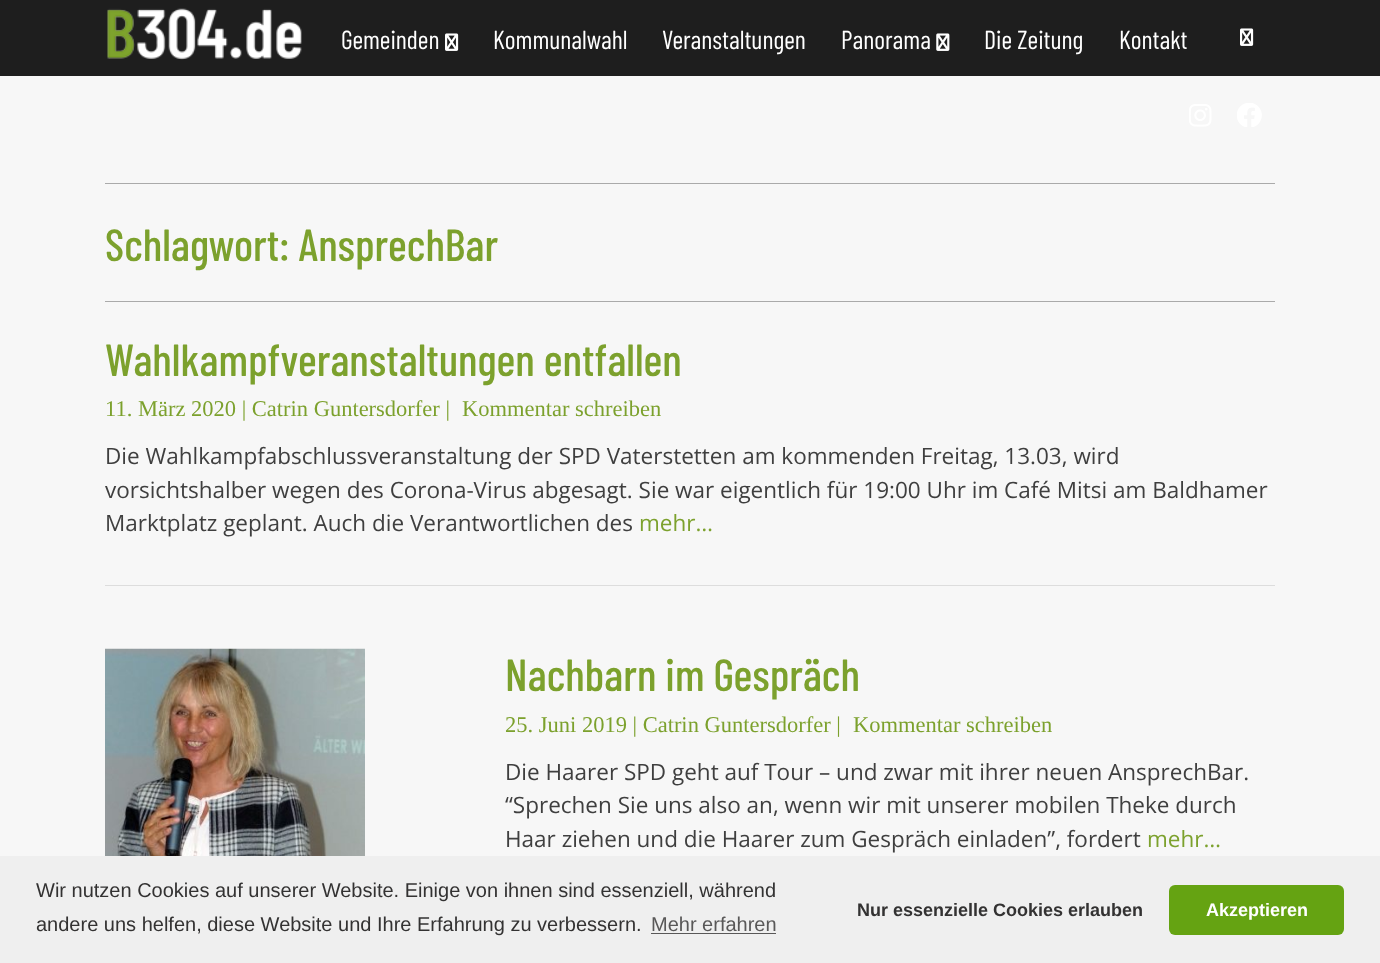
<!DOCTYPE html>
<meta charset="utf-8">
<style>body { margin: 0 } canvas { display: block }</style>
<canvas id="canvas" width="1380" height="963"></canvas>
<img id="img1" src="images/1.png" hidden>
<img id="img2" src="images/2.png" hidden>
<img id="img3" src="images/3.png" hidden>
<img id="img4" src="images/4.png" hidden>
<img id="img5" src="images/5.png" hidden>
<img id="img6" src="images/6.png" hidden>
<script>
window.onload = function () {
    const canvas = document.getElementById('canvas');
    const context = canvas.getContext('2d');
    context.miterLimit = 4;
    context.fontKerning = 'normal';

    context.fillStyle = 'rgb(247, 247, 247)';
    context.fillRect(0, 0, 1380, 963);
    context.fillStyle = 'rgb(30, 30, 30)';
    context.fillRect(0, 0, 1380, 76);
    context.drawImage(document.getElementById('img1'), 107, 8, 195, 52);
    context.drawImage(document.getElementById('img2'), 445, 33, 14, 18);
    context.drawImage(document.getElementById('img3'), 936, 33, 14, 18);
    context.drawImage(document.getElementById('img2'), 1240, 28, 14, 18);
    context.drawImage(document.getElementById('img4'), 1189, 104, 23, 23);
    context.drawImage(document.getElementById('img5'), 1237, 103, 25, 24);
    context.fillStyle = 'rgb(170, 170, 170)';
    context.fillRect(105, 183, 1170, 1);
    context.fillRect(105, 301, 1170, 1);
    context.fillStyle = 'rgb(221, 221, 221)';
    context.fillRect(105, 585, 1170, 1);
    context.drawImage(document.getElementById('img6'), 105, 648, 260, 208);
    context.fillStyle = 'rgb(239, 239, 239)';
    context.fillRect(0, 856, 1380, 107);
    context.fillStyle = 'rgb(89, 88, 88)';
    context.fillRect(651, 933, 125, 1);
    context.fillStyle = 'rgb(101, 163, 18)';
    context.beginPath();
    context.roundRect(1169, 885, 175, 50, 6);
    context.fill();
    context.font = '26px Barlow Condensed';
    context.fillStyle = 'rgb(255, 255, 255)';
    context.fillText('Gemeinden', 341, 49);
    context.fillText('Kommunalwahl', 493, 49);
    context.fillText('Veranstaltungen', 662, 49);
    context.fillText('Panorama', 841, 49);
    context.fillText('Die Zeitung', 984, 49);
    context.fillText('Kontakt', 1119, 49);
    context.font = '500 45px Barlow Condensed';
    context.fillStyle = 'rgb(124, 161, 45)';
    context.fillText('Schlagwort: AnsprechBar', 105, 261);
    context.fillText('Wahlkampfveranstaltungen entfallen', 105, 376);
    context.font = '22.5px Liberation Serif';
    context.fillText('11. März 2020 | Catrin Guntersdorfer |', 105, 416);
    context.fillText('Kommentar schreiben', 462, 416);
    context.font = '22.5px Open Sans';
    context.fillStyle = 'rgb(63, 63, 63)';
    context.fillText('Die Wahlkampfabschlussveranstaltung der SPD Vaterstetten am kommenden Freitag, 13.03, wird', 105, 464);
    context.fillText('vorsichtshalber wegen des Corona-Virus abgesagt. Sie war eigentlich für 19:00 Uhr im Café Mitsi am Baldhamer', 105, 498);
    context.fillText('Marktplatz geplant. Auch die Verantwortlichen des', 105, 531);
    context.fillStyle = 'rgb(124, 161, 45)';
    context.fillText('mehr…', 639, 531);
    context.font = '500 45px Barlow Condensed';
    context.fillText('Nachbarn im Gespräch', 505, 691);
    context.font = '22.5px Liberation Serif';
    context.fillText('25. Juni 2019 | Catrin Guntersdorfer |', 505, 732);
    context.fillText('Kommentar schreiben', 853, 732);
    context.font = '22.5px Open Sans';
    context.fillStyle = 'rgb(63, 63, 63)';
    context.fillText('Die Haarer SPD geht auf Tour – und zwar mit ihrer neuen AnsprechBar.', 505, 780);
    context.fillText('“Sprechen Sie uns also an, wenn wir mit unserer mobilen Theke durch', 505, 813);
    context.fillText('Haar ziehen und die Haarer zum Gespräch einladen”, fordert', 505, 847);
    context.fillStyle = 'rgb(124, 161, 45)';
    context.fillText('mehr…', 1147, 847);
    context.font = '20px Liberation Sans';
    context.fillStyle = 'rgb(51, 50, 50)';
    context.fillText('Wir nutzen Cookies auf unserer Website. Einige von ihnen sind essenziell, während', 36, 897);
    context.fillText('andere uns helfen, diese Website und Ihre Erfahrung zu verbessern.', 36, 931);
    context.fillStyle = 'rgb(89, 88, 88)';
    context.fillText('Mehr erfahren', 651, 931);
    context.font = 'bold 18px Liberation Sans';
    context.fillStyle = 'rgb(51, 50, 50)';
    context.fillText('Nur essenzielle Cookies erlauben', 857, 916);
    context.fillStyle = 'rgb(255, 255, 255)';
    context.fillText('Akzeptieren', 1206, 916);
};
</script>
